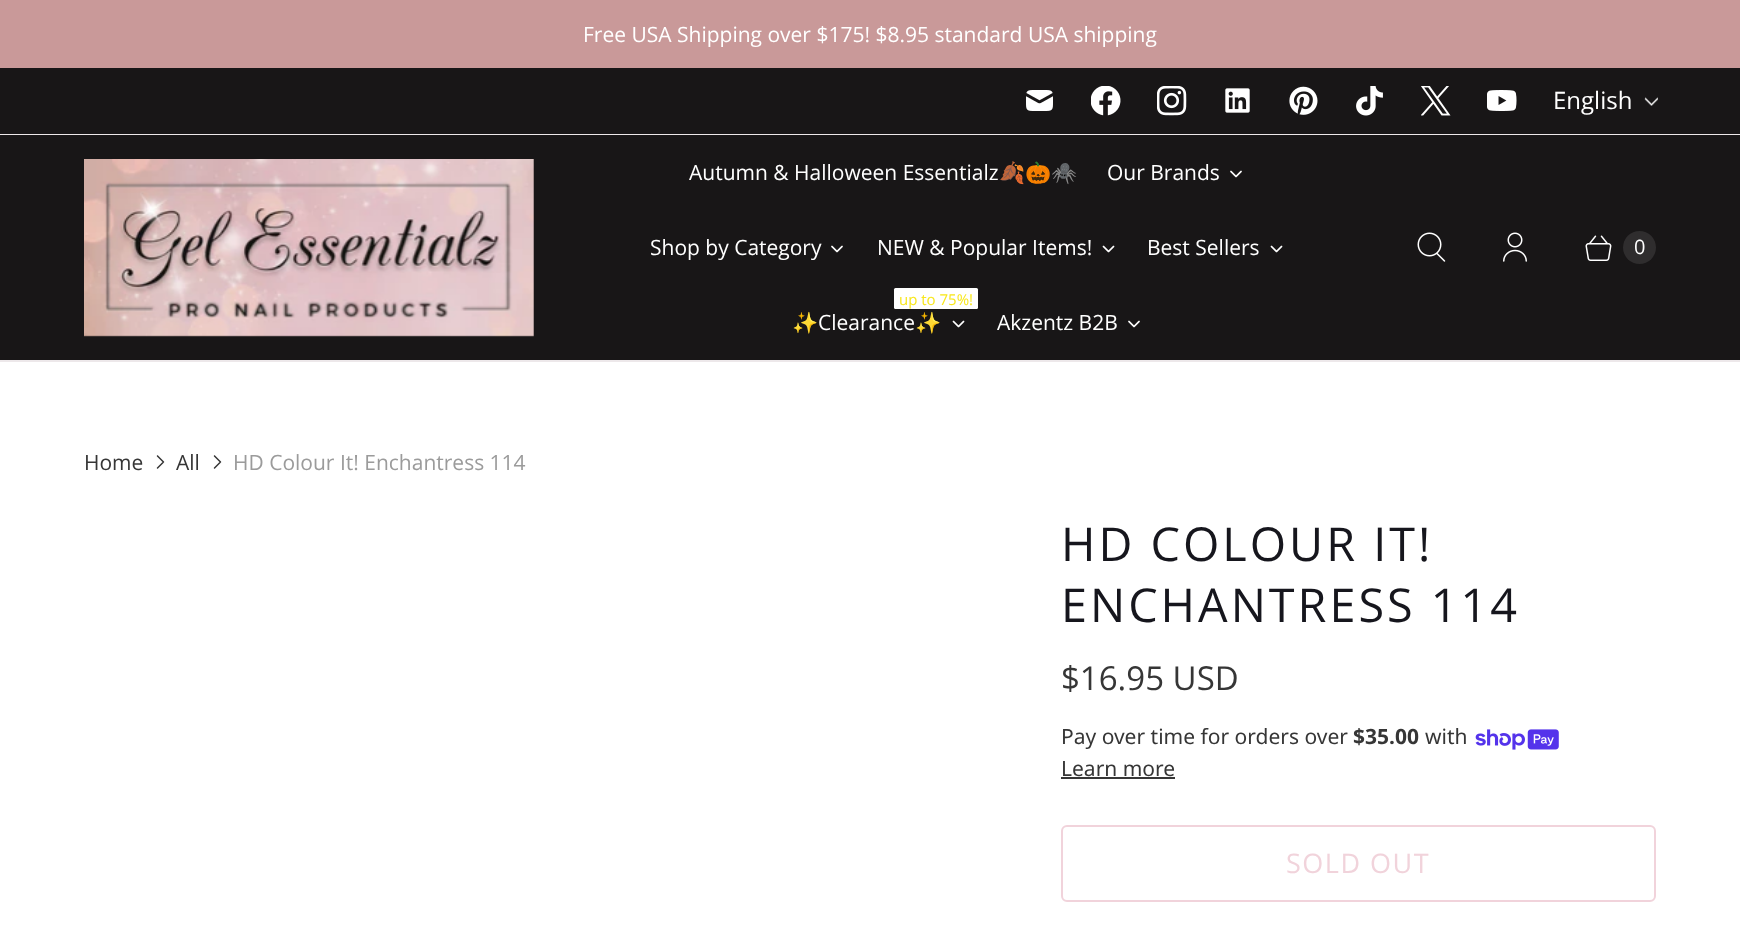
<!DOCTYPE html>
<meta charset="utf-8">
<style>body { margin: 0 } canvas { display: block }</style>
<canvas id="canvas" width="1740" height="939"></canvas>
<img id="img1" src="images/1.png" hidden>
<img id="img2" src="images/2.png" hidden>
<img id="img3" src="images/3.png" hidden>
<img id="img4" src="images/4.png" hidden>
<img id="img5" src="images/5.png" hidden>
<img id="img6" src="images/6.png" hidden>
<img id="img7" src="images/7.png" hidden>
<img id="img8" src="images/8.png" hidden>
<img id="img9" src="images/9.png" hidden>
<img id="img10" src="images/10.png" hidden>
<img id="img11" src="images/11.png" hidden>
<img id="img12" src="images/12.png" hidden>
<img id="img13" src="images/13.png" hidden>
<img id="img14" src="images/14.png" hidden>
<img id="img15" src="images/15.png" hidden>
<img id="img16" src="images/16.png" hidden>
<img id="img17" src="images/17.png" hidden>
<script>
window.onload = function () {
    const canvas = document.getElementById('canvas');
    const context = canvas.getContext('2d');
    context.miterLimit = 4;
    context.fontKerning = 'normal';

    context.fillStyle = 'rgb(255, 255, 255)';
    context.fillRect(0, 0, 1740, 939);
    context.fillStyle = 'rgb(201, 153, 153)';
    context.fillRect(0, 0, 1740, 68);
    context.fillStyle = 'rgb(24, 22, 23)';
    context.fillRect(0, 68, 1740, 66);
    context.fillStyle = 'rgb(237, 232, 234)';
    context.fillRect(0, 134, 1740, 1);
    context.drawImage(document.getElementById('img1'), 1026, 90, 27, 21);
    context.drawImage(document.getElementById('img2'), 1091, 86, 30, 30);
    context.drawImage(document.getElementById('img3'), 1157, 86, 30, 30);
    context.drawImage(document.getElementById('img4'), 1225, 88, 25, 25);
    context.drawImage(document.getElementById('img5'), 1289, 86, 29, 29);
    context.drawImage(document.getElementById('img6'), 1356, 86, 27, 30);
    context.drawImage(document.getElementById('img7'), 1421, 86, 30, 30);
    context.drawImage(document.getElementById('img8'), 1487, 90, 30, 21);
    context.drawImage(document.getElementById('img9'), 1644, 97, 14, 9);
    context.fillStyle = 'rgb(24, 22, 23)';
    context.fillRect(0, 135, 1740, 225);
    context.fillStyle = 'rgb(237, 232, 234)';
    context.fillRect(0, 360, 1740, 2);
    context.drawImage(document.getElementById('img10'), 84, 159, 450, 178);
    context.drawImage(document.getElementById('img11'), 1230, 170, 12, 8);
    context.drawImage(document.getElementById('img11'), 831, 245, 12, 8);
    context.drawImage(document.getElementById('img12'), 1102, 245, 13, 8);
    context.drawImage(document.getElementById('img12'), 1270, 245, 13, 8);
    context.fillStyle = 'rgb(255, 255, 255)';
    context.beginPath();
    context.roundRect(894, 288, 84, 21, 1.5);
    context.fill();
    context.drawImage(document.getElementById('img12'), 952, 320, 13, 8);
    context.drawImage(document.getElementById('img11'), 1128, 320, 12, 8);
    context.drawImage(document.getElementById('img13'), 1417, 232, 29, 30);
    context.drawImage(document.getElementById('img14'), 1503, 232, 24, 30);
    context.drawImage(document.getElementById('img15'), 1585, 235, 27, 26);
    context.fillStyle = 'rgb(47, 45, 46)';
    context.beginPath();
    context.arc(1639.5, 247.5, 16.5, 0, 2 * Math.PI);
    context.fill();
    context.drawImage(document.getElementById('img16'), 156, 455, 9, 14);
    context.drawImage(document.getElementById('img16'), 213, 455, 9, 14);
    context.drawImage(document.getElementById('img17'), 1475, 729, 84, 21);
    context.fillStyle = 'rgb(54, 54, 54)';
    context.fillRect(1061, 777, 114, 2);
    context.beginPath();
    context.roundRect(1062, 826, 593, 75, 5);
    context.strokeStyle = 'rgb(241, 211, 219)';
    context.lineWidth = 2;
    context.stroke();
    context.font = '21px Open Sans';
    context.fillStyle = 'rgb(255, 255, 255)';
    context.fillText('Free USA Shipping over $175! $8.95 standard USA shipping', 583, 42);
    context.font = '24px Open Sans';
    context.fillText('English', 1553, 109);
    context.font = '21px Open Sans';
    context.fillText('Autumn & Halloween Essentialz', 689, 180);
    context.font = '21px Noto Color Emoji';
    context.fillText('🍂🎃🕷️', 999, 180);
    context.font = '21px Open Sans';
    context.fillText('Our Brands', 1107, 180);
    context.fillText('Shop by Category', 650, 255);
    context.fillText('NEW & Popular Items!', 877, 255);
    context.fillText('Best Sellers', 1147, 255);
    context.font = '15px Open Sans';
    context.fillStyle = 'rgb(248, 231, 28)';
    context.fillText('up to 75%!', 899, 305);
    context.font = '21px Noto Color Emoji';
    context.fillStyle = 'rgb(255, 255, 255)';
    context.fillText('✨', 792, 330);
    context.font = '21px Open Sans';
    context.fillText('Clearance', 818, 330);
    context.font = '21px Noto Color Emoji';
    context.fillText('✨', 915, 330);
    context.font = '21px Open Sans';
    context.fillText('Akzentz B2B', 997, 330);
    context.font = '20px Open Sans';
    context.fillText('0', 1634, 254);
    context.font = '21px Open Sans';
    context.fillStyle = 'rgb(54, 54, 54)';
    context.fillText('Home', 84, 470);
    context.fillText('All', 176, 470);
    context.fillStyle = 'rgb(155, 155, 155)';
    context.fillText('HD Colour It! Enchantress 114', 233, 470);
    context.letterSpacing = '3px';
    context.font = '46.75px Open Sans';
    context.fillStyle = 'rgb(22, 22, 29)';
    context.fillText('HD COLOUR IT!', 1061, 561);
    context.fillText('ENCHANTRESS 114', 1061, 622);
    context.letterSpacing = '0px';
    context.font = '33px Open Sans';
    context.fillStyle = 'rgb(54, 54, 54)';
    context.fillText('$16.95 USD', 1061, 690);
    context.font = '21px Noto Sans';
    context.fillText('Pay over time for orders over', 1061, 744);
    context.font = 'bold 21px Noto Sans';
    context.fillText('$35.00', 1353, 744);
    context.font = '21px Noto Sans';
    context.fillText('with', 1425, 744);
    context.fillText('Learn more', 1061, 776);
    context.letterSpacing = '1.5px';
    context.font = '27px Open Sans';
    context.fillStyle = 'rgb(241, 211, 219)';
    context.fillText('SOLD OUT', 1286, 873);
};
</script>
